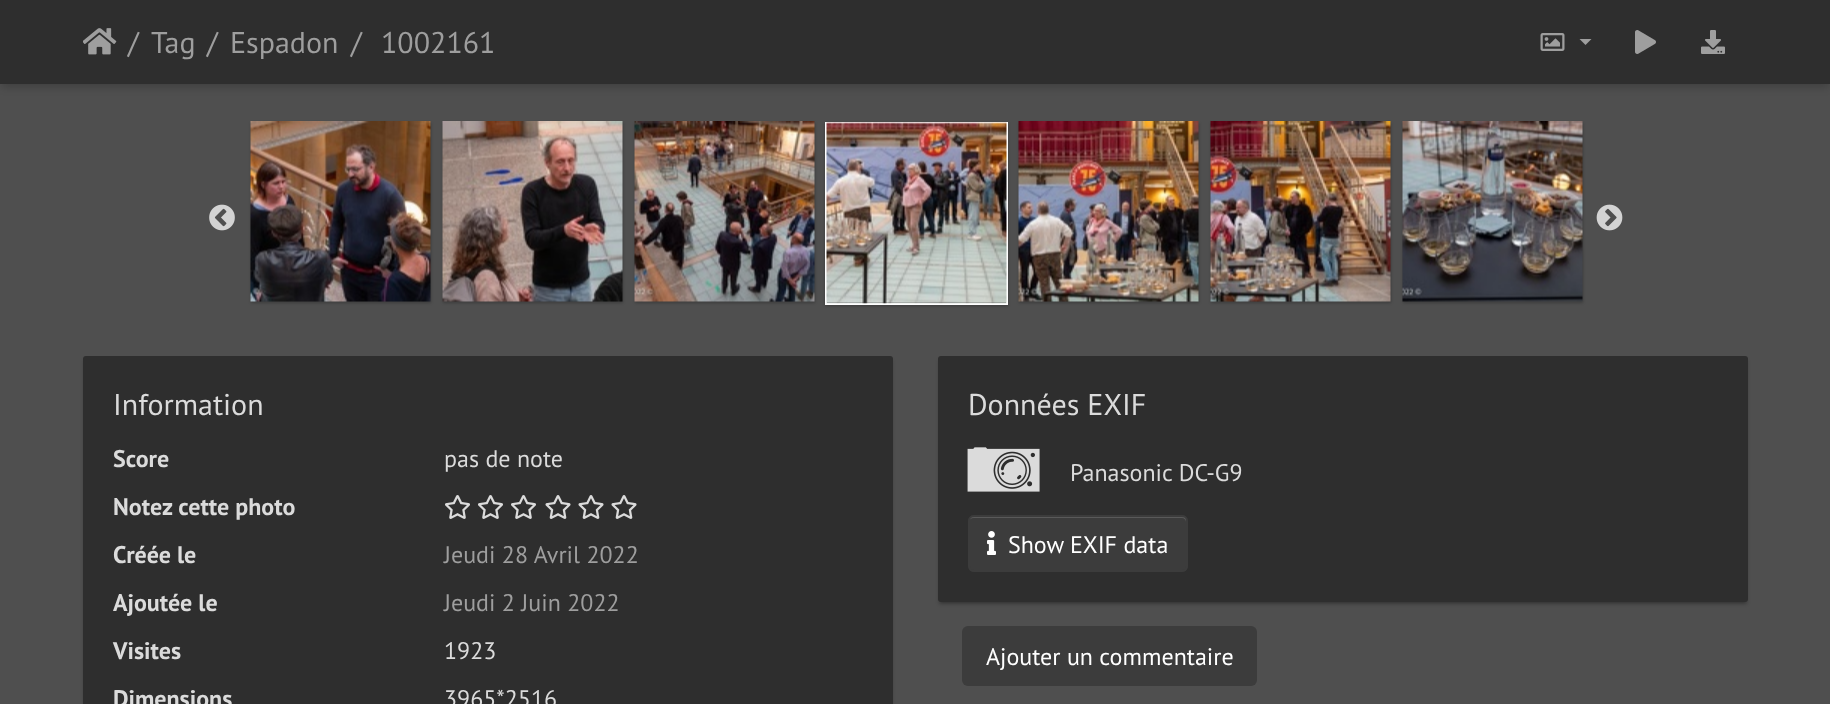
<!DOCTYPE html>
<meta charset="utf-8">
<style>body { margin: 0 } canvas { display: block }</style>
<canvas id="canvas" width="1830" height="704"></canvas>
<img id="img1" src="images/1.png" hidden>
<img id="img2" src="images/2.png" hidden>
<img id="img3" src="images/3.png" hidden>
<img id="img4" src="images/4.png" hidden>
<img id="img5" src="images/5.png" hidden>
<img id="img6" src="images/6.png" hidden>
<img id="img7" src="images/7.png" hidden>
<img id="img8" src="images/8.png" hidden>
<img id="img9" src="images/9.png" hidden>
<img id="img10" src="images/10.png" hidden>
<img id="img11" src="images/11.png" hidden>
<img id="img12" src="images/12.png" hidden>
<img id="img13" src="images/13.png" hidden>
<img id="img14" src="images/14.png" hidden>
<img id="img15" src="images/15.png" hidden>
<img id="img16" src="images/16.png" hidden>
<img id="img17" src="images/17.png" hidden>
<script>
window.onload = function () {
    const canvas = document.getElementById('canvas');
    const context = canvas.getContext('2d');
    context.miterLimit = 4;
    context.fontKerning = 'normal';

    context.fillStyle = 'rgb(79, 79, 79)';
    context.fillRect(0, 0, 1830, 704);
    context.fillStyle = 'rgba(0, 0, 0, 0.2)';
    context.filter = 'blur(4px)';
    context.beginPath();
    context.rect(2, 6, 1827, 81);
    context.fill();
    context.filter = 'none';
    context.fillStyle = 'rgb(46, 46, 46)';
    context.fillRect(0, 0, 1830, 84);
    context.drawImage(document.getElementById('img1'), 83, 28, 34, 27);
    context.drawImage(document.getElementById('img2'), 1540, 33, 25, 18);
    context.fillStyle = 'rgb(158, 158, 158)';
    context.beginPath();
    context.moveTo(1579.5, 39);
    context.lineTo(1591.5, 39);
    context.lineTo(1585.5, 45);
    context.closePath();
    context.fill();
    context.drawImage(document.getElementById('img3'), 1635, 30, 21, 24);
    context.drawImage(document.getElementById('img4'), 1701, 30, 24, 24);
    context.drawImage(document.getElementById('img5'), 209, 204, 26, 27);
    context.fillStyle = 'rgba(0, 0, 0, 0.24)';
    context.filter = 'blur(1.5px)';
    context.beginPath();
    context.rect(251, 123, 180, 180);
    context.fill();
    context.filter = 'none';
    context.drawImage(document.getElementById('img6'), 250, 121, 181, 181);
    context.filter = 'blur(1.5px)';
    context.beginPath();
    context.rect(443, 123, 180, 180);
    context.fill();
    context.filter = 'none';
    context.drawImage(document.getElementById('img7'), 442, 121, 181, 181);
    context.filter = 'blur(1.5px)';
    context.beginPath();
    context.rect(635, 123, 180, 180);
    context.fill();
    context.filter = 'none';
    context.drawImage(document.getElementById('img8'), 634, 121, 181, 181);
    context.filter = 'blur(1.5px)';
    context.beginPath();
    context.rect(825, 123, 183, 183);
    context.fill();
    context.filter = 'none';
    context.strokeStyle = 'rgb(255, 255, 255)';
    context.lineWidth = 2;
    context.strokeRect(826, 123, 181, 181);
    context.drawImage(document.getElementById('img9'), 826, 122, 181, 182);
    context.filter = 'blur(1.5px)';
    context.beginPath();
    context.rect(1019, 123, 180, 180);
    context.fill();
    context.filter = 'none';
    context.drawImage(document.getElementById('img10'), 1018, 121, 181, 181);
    context.filter = 'blur(1.5px)';
    context.beginPath();
    context.rect(1211, 123, 180, 180);
    context.fill();
    context.filter = 'none';
    context.drawImage(document.getElementById('img11'), 1210, 121, 181, 181);
    context.filter = 'blur(1.5px)';
    context.beginPath();
    context.rect(1403, 123, 180, 180);
    context.fill();
    context.filter = 'none';
    context.drawImage(document.getElementById('img12'), 1402, 121, 181, 181);
    context.drawImage(document.getElementById('img13'), 1596, 204, 27, 27);
    context.fillStyle = 'rgba(0, 0, 0, 0.14)';
    context.filter = 'blur(1.5px)';
    context.beginPath();
    context.roundRect(83, 359, 810, 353, 3);
    context.fill();
    context.filter = 'none';
    context.fillStyle = 'rgb(46, 46, 46)';
    context.beginPath();
    context.roundRect(83, 356, 810, 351, 3);
    context.fill();
    context.drawImage(document.getElementById('img14'), 445, 495, 25, 24);
    context.drawImage(document.getElementById('img14'), 478, 495, 25, 24);
    context.drawImage(document.getElementById('img14'), 511, 495, 25, 24);
    context.drawImage(document.getElementById('img15'), 545, 495, 26, 24);
    context.drawImage(document.getElementById('img15'), 578, 495, 26, 24);
    context.drawImage(document.getElementById('img15'), 611, 495, 26, 24);
    context.fillStyle = 'rgba(0, 0, 0, 0.2)';
    context.filter = 'blur(1px)';
    context.beginPath();
    context.rect(941, 363, 804, 240);
    context.fill();
    context.filter = 'none';
    context.fillStyle = 'rgba(0, 0, 0, 0.14)';
    context.filter = 'blur(1.5px)';
    context.beginPath();
    context.roundRect(938, 359, 810, 246, 3);
    context.fill();
    context.filter = 'none';
    context.fillStyle = 'rgb(46, 46, 46)';
    context.beginPath();
    context.roundRect(938, 356, 810, 246, 3);
    context.fill();
    context.drawImage(document.getElementById('img16'), 967, 447, 73, 45);
    context.fillStyle = 'rgb(60, 60, 60)';
    context.beginPath();
    context.roundRect(968, 515, 220, 57, 6);
    context.fill();
    context.fillStyle = 'rgb(89, 89, 89)';
    context.beginPath();
    context.moveTo(974, 518);
    context.lineTo(1182, 518);
    context.bezierCurveTo(1184, 518, 1186, 520, 1186, 522);
    context.lineTo(1186, 568);
    context.bezierCurveTo(1187, 567, 1187, 566, 1187, 565);
    context.lineTo(1187, 521);
    context.bezierCurveTo(1187, 518, 1185, 516, 1182, 516);
    context.lineTo(974, 516);
    context.bezierCurveTo(971, 516, 969, 518, 969, 521);
    context.lineTo(969, 522);
    context.bezierCurveTo(969, 520, 971, 518, 974, 518);
    context.closePath();
    context.fill();
    context.beginPath();
    context.roundRect(969, 516, 218, 55, 5);
    context.strokeStyle = 'rgb(60, 60, 60)';
    context.stroke();
    context.drawImage(document.getElementById('img17'), 987, 531, 9, 24);
    context.fillStyle = 'rgb(60, 60, 60)';
    context.beginPath();
    context.roundRect(962, 626, 295, 60, 6);
    context.fill();
    context.font = '30px PT Sans';
    context.fillStyle = 'rgb(158, 158, 158)';
    context.fillText('/', 128, 53);
    context.fillText('Tag', 151, 53);
    context.fillText('/', 207, 53);
    context.fillText('Espadon', 230, 53);
    context.fillText('/', 351, 53);
    context.fillText('1002161', 381, 53);
    context.fillStyle = 'rgb(219, 219, 219)';
    context.fillText('Information', 113, 415);
    context.font = 'bold 24px PT Sans';
    context.fillText('Score', 113, 467);
    context.font = '24px PT Sans';
    context.fillText('pas de note', 444, 467);
    context.font = 'bold 24px PT Sans';
    context.fillText('Notez cette photo', 113, 515);
    context.fillText('Créée le', 113, 563);
    context.font = '24px PT Sans';
    context.fillStyle = 'rgb(158, 158, 158)';
    context.fillText('Jeudi 28 Avril 2022', 444, 563);
    context.font = 'bold 24px PT Sans';
    context.fillStyle = 'rgb(219, 219, 219)';
    context.fillText('Ajoutée le', 113, 611);
    context.font = '24px PT Sans';
    context.fillStyle = 'rgb(158, 158, 158)';
    context.fillText('Jeudi 2 Juin 2022', 444, 611);
    context.font = 'bold 24px PT Sans';
    context.fillStyle = 'rgb(219, 219, 219)';
    context.fillText('Visites', 113, 659);
    context.font = '24px PT Sans';
    context.fillText('1923', 444, 659);
    context.font = 'bold 24px PT Sans';
    context.fillText('Dimensions', 113, 707);
    context.font = '24px PT Sans';
    context.fillText('3965*2516', 444, 707);
    context.font = '30px PT Sans';
    context.fillText('Données EXIF', 968, 415);
    context.font = '24px PT Sans';
    context.fillText('Panasonic DC-G9', 1070, 481);
    context.fillStyle = 'rgb(255, 255, 255)';
    context.fillText('Show EXIF data', 1008, 553);
    context.fillText('Ajouter un commentaire', 986, 665);
};
</script>
